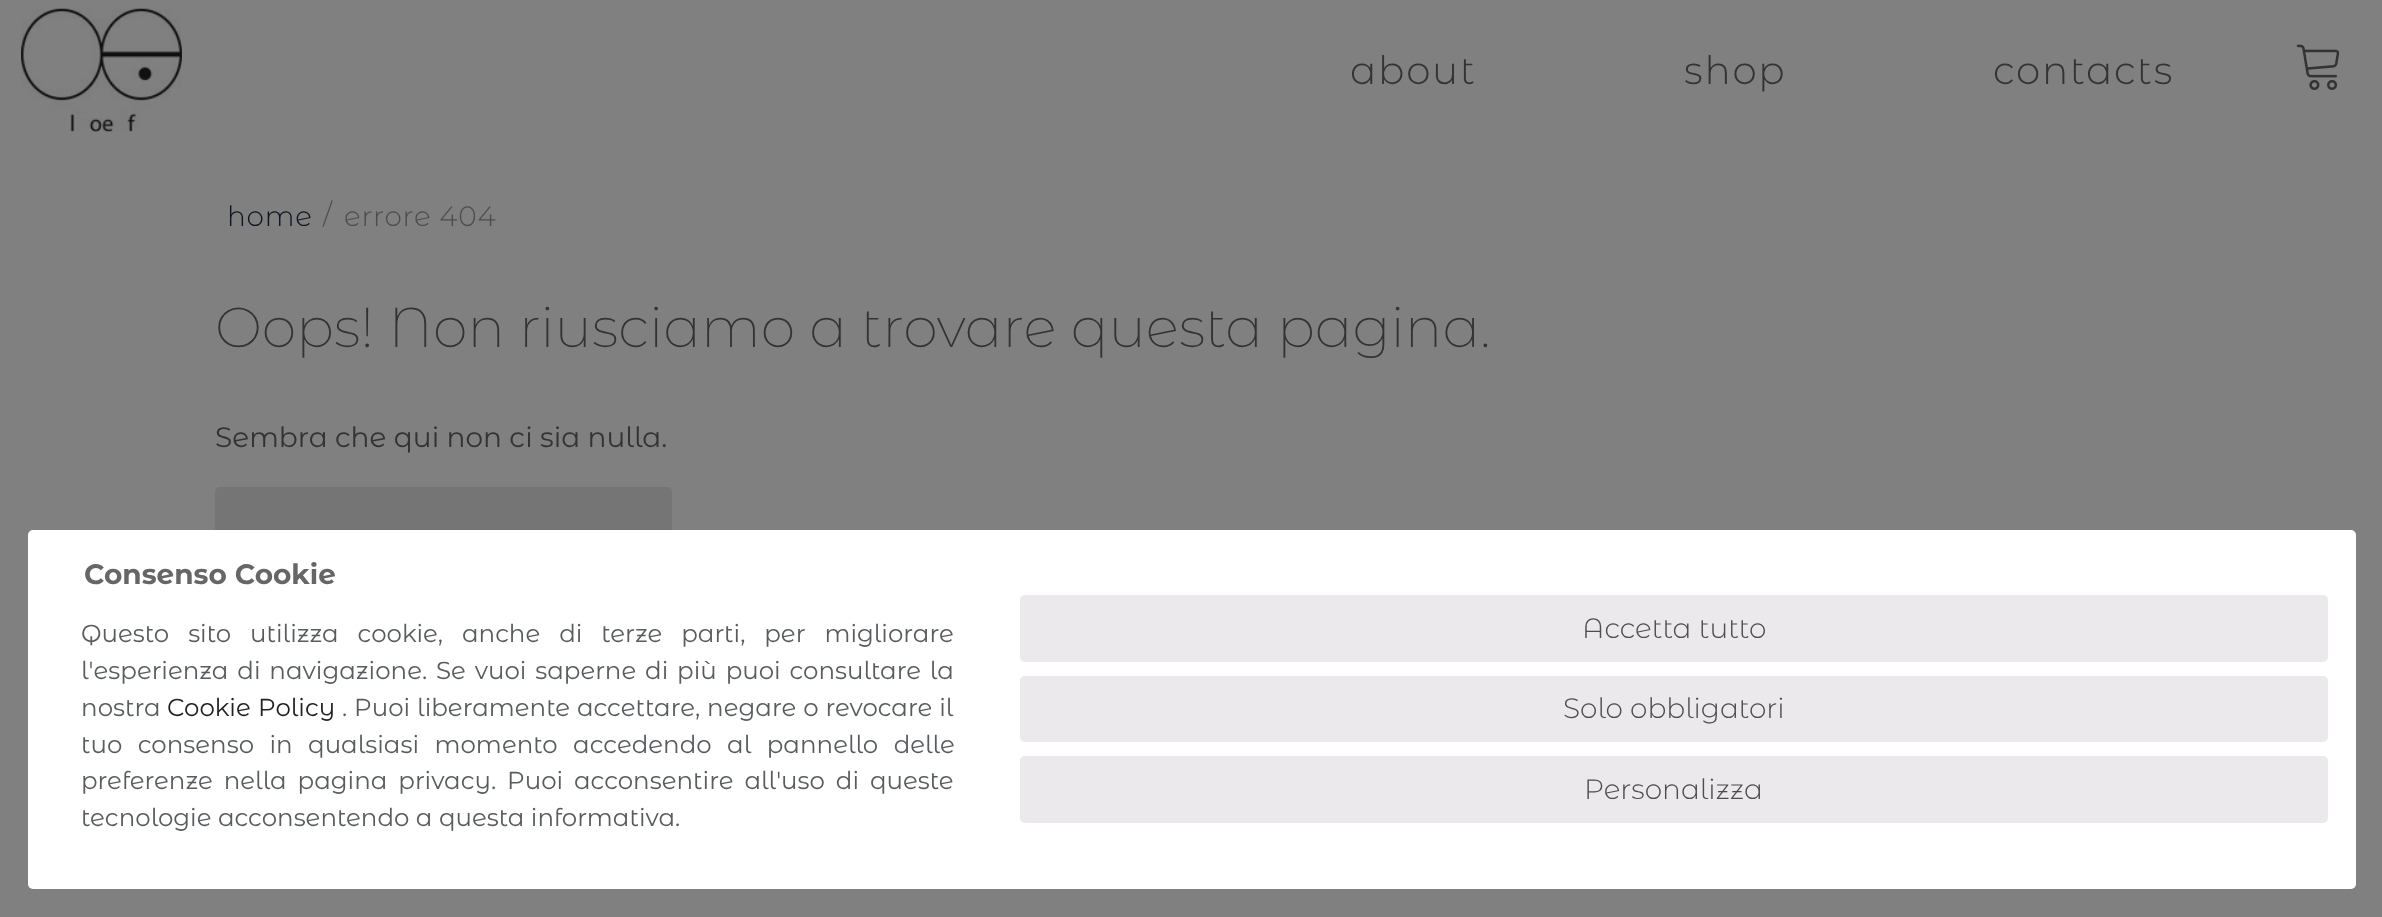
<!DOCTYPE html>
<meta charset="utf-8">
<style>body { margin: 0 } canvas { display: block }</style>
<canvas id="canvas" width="2382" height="917"></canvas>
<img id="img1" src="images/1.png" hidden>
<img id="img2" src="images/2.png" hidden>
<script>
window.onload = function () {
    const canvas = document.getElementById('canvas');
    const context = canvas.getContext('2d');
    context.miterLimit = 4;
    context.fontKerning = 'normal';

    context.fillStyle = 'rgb(128, 128, 128)';
    context.fillRect(0, 0, 2382, 917);
    context.drawImage(document.getElementById('img1'), 21, 8, 161, 124);
    context.drawImage(document.getElementById('img2'), 2296, 44, 44, 46);
    context.fillStyle = 'rgb(118, 117, 118)';
    context.beginPath();
    context.roundRect(215, 487, 457, 84, 5);
    context.fill();
    context.fillStyle = 'rgb(255, 255, 255)';
    context.beginPath();
    context.roundRect(28, 530, 2328, 359, 5);
    context.fill();
    context.fillStyle = 'rgb(235, 233, 235)';
    context.beginPath();
    context.roundRect(1020, 595, 1308, 67, 5);
    context.fill();
    context.beginPath();
    context.roundRect(1020, 676, 1308, 66, 5);
    context.fill();
    context.beginPath();
    context.roundRect(1020, 756, 1308, 67, 5);
    context.fill();
    context.letterSpacing = '1.75px';
    context.font = '300 39px Montserrat Alternates';
    context.fillStyle = 'rgb(51, 51, 51)';
    context.fillText('about', 1350, 84);
    context.fillText('shop', 1684, 84);
    context.fillText('contacts', 1993, 84);
    context.letterSpacing = '0.75px';
    context.font = '300 28px Montserrat Alternates';
    context.fillStyle = 'rgb(14, 20, 31)';
    context.fillText('home', 227, 226);
    context.fillStyle = 'rgb(77, 77, 77)';
    context.fillText('/', 323, 224);
    context.fillText('errore 404', 344, 226);
    context.letterSpacing = '0px';
    context.font = '200 56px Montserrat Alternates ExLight';
    context.fillStyle = 'rgb(51, 51, 51)';
    context.fillText('Oops! Non riusciamo a trovare questa pagina.', 215, 347);
    context.font = '28px Montserrat Alternates';
    context.fillText('Sembra che qui non ci sia nulla.', 215, 447);
    context.font = 'bold 28px Montserrat Alternates';
    context.fillStyle = 'rgb(102, 102, 102)';
    context.fillText('Consenso Cookie', 84, 584);
    context.wordSpacing = '12.5px';
    context.font = '24.5px Montserrat Alternates';
    context.fillStyle = 'rgb(89, 92, 95)';
    context.fillText('Questo sito utilizza cookie, anche di terze parti, per migliorare', 81, 642);
    context.wordSpacing = '2.4px';
    context.fillText('l\'esperienza di navigazione. Se vuoi saperne di più puoi consultare la', 81, 679);
    context.wordSpacing = '0px';
    context.fillText('nostra', 81, 716);
    context.wordSpacing = '1px';
    context.fillStyle = 'rgb(34, 34, 34)';
    context.fillText('Cookie Policy', 167, 716);
    context.wordSpacing = '0.5px';
    context.fillStyle = 'rgb(89, 92, 95)';
    context.fillText('. Puoi liberamente accettare, negare o revocare il', 342, 716);
    context.wordSpacing = '9px';
    context.fillText('tuo consenso in qualsiasi momento accedendo al pannello delle', 81, 753);
    context.wordSpacing = '4.5px';
    context.fillText('preferenze nella pagina privacy. Puoi acconsentire all\'uso di queste', 81, 789);
    context.wordSpacing = '0px';
    context.fillText('tecnologie acconsentendo a questa informativa.', 81, 826);
    context.font = '300 28px Montserrat Alternates';
    context.fillStyle = 'rgb(77, 77, 77)';
    context.fillText('Accetta tutto', 1582, 638);
    context.fillText('Solo obbligatori', 1563, 718);
    context.fillText('Personalizza', 1584, 799);
};
</script>
